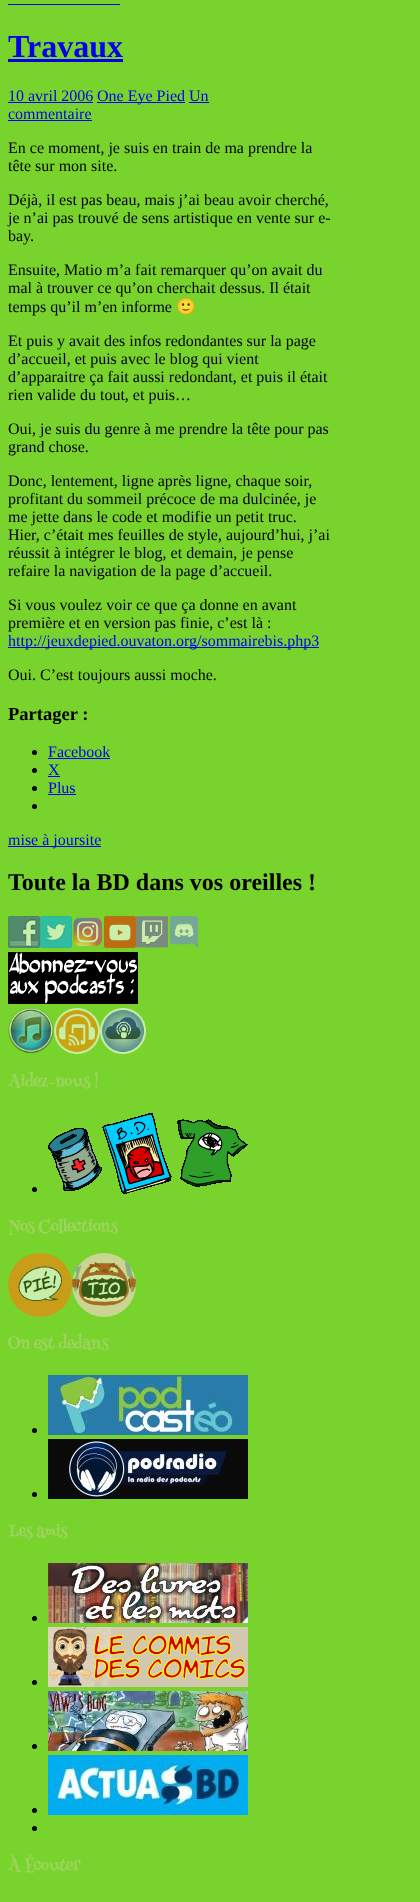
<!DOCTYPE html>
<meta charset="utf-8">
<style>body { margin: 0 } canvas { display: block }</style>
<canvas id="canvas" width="420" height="1902"></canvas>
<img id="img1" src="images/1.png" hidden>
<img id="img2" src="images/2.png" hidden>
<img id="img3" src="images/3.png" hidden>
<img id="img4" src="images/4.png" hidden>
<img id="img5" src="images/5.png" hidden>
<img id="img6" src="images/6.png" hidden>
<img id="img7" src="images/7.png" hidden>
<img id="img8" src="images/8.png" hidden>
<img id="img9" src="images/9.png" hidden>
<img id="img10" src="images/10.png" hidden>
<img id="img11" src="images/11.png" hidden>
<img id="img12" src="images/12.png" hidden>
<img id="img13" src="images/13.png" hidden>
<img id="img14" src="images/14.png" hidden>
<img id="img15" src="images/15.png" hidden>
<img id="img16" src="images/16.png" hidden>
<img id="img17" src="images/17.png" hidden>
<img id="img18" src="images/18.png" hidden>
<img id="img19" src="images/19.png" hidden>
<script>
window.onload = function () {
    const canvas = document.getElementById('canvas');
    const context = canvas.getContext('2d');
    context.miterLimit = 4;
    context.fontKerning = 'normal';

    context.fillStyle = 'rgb(120, 212, 44)';
    context.fillRect(0, 0, 420, 1902);
    context.fillStyle = 'rgb(0, 0, 238)';
    context.fillRect(8, 4, 112, 1);
    context.fillRect(8, 59, 115, 3);
    context.fillRect(8, 102, 85, 1);
    context.fillRect(97, 102, 88, 1);
    context.fillRect(189, 102, 20, 1);
    context.fillRect(8, 120, 84, 1);
    context.fillRect(8, 647, 311, 1);
    context.fillStyle = 'rgb(0, 0, 0)';
    context.beginPath();
    context.arc(34.5, 752.5, 2.5, 0, 2 * Math.PI);
    context.fill();
    context.fillStyle = 'rgb(0, 0, 238)';
    context.fillRect(48, 758, 62, 1);
    context.fillStyle = 'rgb(0, 0, 0)';
    context.beginPath();
    context.arc(34.5, 770.5, 2.5, 0, 2 * Math.PI);
    context.fill();
    context.fillStyle = 'rgb(0, 0, 238)';
    context.fillRect(48, 776, 12, 1);
    context.fillStyle = 'rgb(0, 0, 0)';
    context.beginPath();
    context.arc(34.5, 788.5, 2.5, 0, 2 * Math.PI);
    context.fill();
    context.fillStyle = 'rgb(0, 0, 238)';
    context.fillRect(48, 794, 28, 1);
    context.fillStyle = 'rgb(0, 0, 0)';
    context.beginPath();
    context.arc(34.5, 806.5, 2.5, 0, 2 * Math.PI);
    context.fill();
    context.fillStyle = 'rgb(0, 0, 238)';
    context.fillRect(8, 846, 93, 1);
    context.drawImage(document.getElementById('img1'), 8, 916, 32, 32);
    context.drawImage(document.getElementById('img2'), 40, 916, 32, 32);
    context.drawImage(document.getElementById('img3'), 73, 917, 29, 30);
    context.drawImage(document.getElementById('img4'), 104, 916, 32, 32);
    context.drawImage(document.getElementById('img5'), 136, 916, 32, 32);
    context.drawImage(document.getElementById('img6'), 169, 916, 30, 32);
    context.drawImage(document.getElementById('img7'), 8, 952, 130, 52);
    context.drawImage(document.getElementById('img8'), 8, 1008, 46, 46);
    context.drawImage(document.getElementById('img9'), 54, 1008, 46, 46);
    context.drawImage(document.getElementById('img10'), 100, 1008, 46, 46);
    context.fillStyle = 'rgb(0, 0, 0)';
    context.beginPath();
    context.arc(34.5, 1189.5, 2.5, 0, 2 * Math.PI);
    context.fill();
    context.drawImage(document.getElementById('img11'), 48, 1113, 200, 81);
    context.drawImage(document.getElementById('img12'), 8, 1253, 64, 64);
    context.drawImage(document.getElementById('img13'), 72, 1253, 64, 64);
    context.beginPath();
    context.arc(34.5, 1430.5, 2.5, 0, 2 * Math.PI);
    context.fill();
    context.drawImage(document.getElementById('img14'), 48, 1375, 200, 60);
    context.beginPath();
    context.arc(34.5, 1494.5, 2.5, 0, 2 * Math.PI);
    context.fill();
    context.drawImage(document.getElementById('img15'), 48, 1439, 200, 60);
    context.beginPath();
    context.arc(34.5, 1618.5, 2.5, 0, 2 * Math.PI);
    context.fill();
    context.drawImage(document.getElementById('img16'), 48, 1563, 200, 60);
    context.beginPath();
    context.arc(34.5, 1682.5, 2.5, 0, 2 * Math.PI);
    context.fill();
    context.drawImage(document.getElementById('img17'), 48, 1627, 200, 60);
    context.beginPath();
    context.arc(34.5, 1746.5, 2.5, 0, 2 * Math.PI);
    context.fill();
    context.drawImage(document.getElementById('img18'), 48, 1691, 200, 60);
    context.beginPath();
    context.arc(34.5, 1810.5, 2.5, 0, 2 * Math.PI);
    context.fill();
    context.drawImage(document.getElementById('img19'), 48, 1755, 200, 60);
    context.beginPath();
    context.arc(34.5, 1828.5, 2.5, 0, 2 * Math.PI);
    context.fill();
    context.font = 'bold 32px Liberation Serif';
    context.fillStyle = 'rgb(0, 0, 238)';
    context.fillText('Travaux', 8, 57);
    context.font = '16px Liberation Serif';
    context.fillText('10 avril 2006', 8, 101);
    context.fillText('One Eye Pied Un', 97, 101);
    context.fillText('commentaire', 8, 119);
    context.fillStyle = 'rgb(0, 0, 0)';
    context.fillText('En ce moment, je suis en train de ma prendre la', 8, 153);
    context.fillText('tête sur mon site.', 8, 171);
    context.fillText('Déjà, il est pas beau, mais j’ai beau avoir cherché,', 8, 205);
    context.fillText('je n’ai pas trouvé de sens artistique en vente sur e-', 8, 223);
    context.fillText('bay.', 8, 241);
    context.fillText('Ensuite, Matio m’a fait remarquer qu’on avait du', 8, 275);
    context.fillText('mal à trouver ce qu’on cherchait dessus. Il était', 8, 293);
    context.fillText('temps qu’il m’en informe', 8, 312);
    context.font = '16px Noto Color Emoji';
    context.fillText('🙂', 176, 312);
    context.font = '16px Liberation Serif';
    context.fillText('Et puis y avait des infos redondantes sur la page', 8, 346);
    context.fillText('d’accueil, et puis avec le blog qui vient', 8, 364);
    context.fillText('d’apparaitre ça fait aussi redondant, et puis il était', 8, 382);
    context.fillText('rien valide du tout, et puis…', 8, 400);
    context.fillText('Oui, je suis du genre à me prendre la tête pour pas', 8, 434);
    context.fillText('grand chose.', 8, 452);
    context.fillText('Donc, lentement, ligne après ligne, chaque soir,', 8, 486);
    context.fillText('profitant du sommeil précoce de ma dulcinée, je', 8, 504);
    context.fillText('me jette dans le code et modifie un petit truc.', 8, 522);
    context.fillText('Hier, c’était mes feuilles de style, aujourd’hui, j’ai', 8, 540);
    context.fillText('réussit à intégrer le blog, et demain, je pense', 8, 558);
    context.fillText('refaire la navigation de la page d’accueil.', 8, 576);
    context.fillText('Si vous voulez voir ce que ça donne en avant', 8, 610);
    context.fillText('première et en version pas finie, c’est là :', 8, 628);
    context.fillStyle = 'rgb(0, 0, 238)';
    context.fillText('http://jeuxdepied.ouvaton.org/sommairebis.php3', 8, 646);
    context.fillStyle = 'rgb(0, 0, 0)';
    context.fillText('Oui. C’est toujours aussi moche.', 8, 680);
    context.font = 'bold 18.5px Liberation Serif';
    context.fillText('Partager :', 8, 720);
    context.font = '16px Liberation Serif';
    context.fillStyle = 'rgb(0, 0, 238)';
    context.fillText('Facebook', 48, 757);
    context.fillText('X', 48, 775);
    context.fillText('Plus', 48, 793);
    context.fillText('mise à joursite', 8, 845);
    context.font = 'bold 24px Liberation Serif';
    context.fillStyle = 'rgb(0, 0, 0)';
    context.fillText('Toute la BD dans vos oreilles !', 8, 890);
    context.font = 'bold 16px Henny Penny';
    context.fillStyle = 'rgb(157, 211, 95)';
    context.fillText('Aidez-nous !', 8, 1087);
    context.fillText('Nos Collections', 8, 1232);
    context.fillText('On est dedans', 8, 1349);
    context.fillText('Les amis', 8, 1537);
    context.fillText('À Écouter', 8, 1871);
};
</script>
